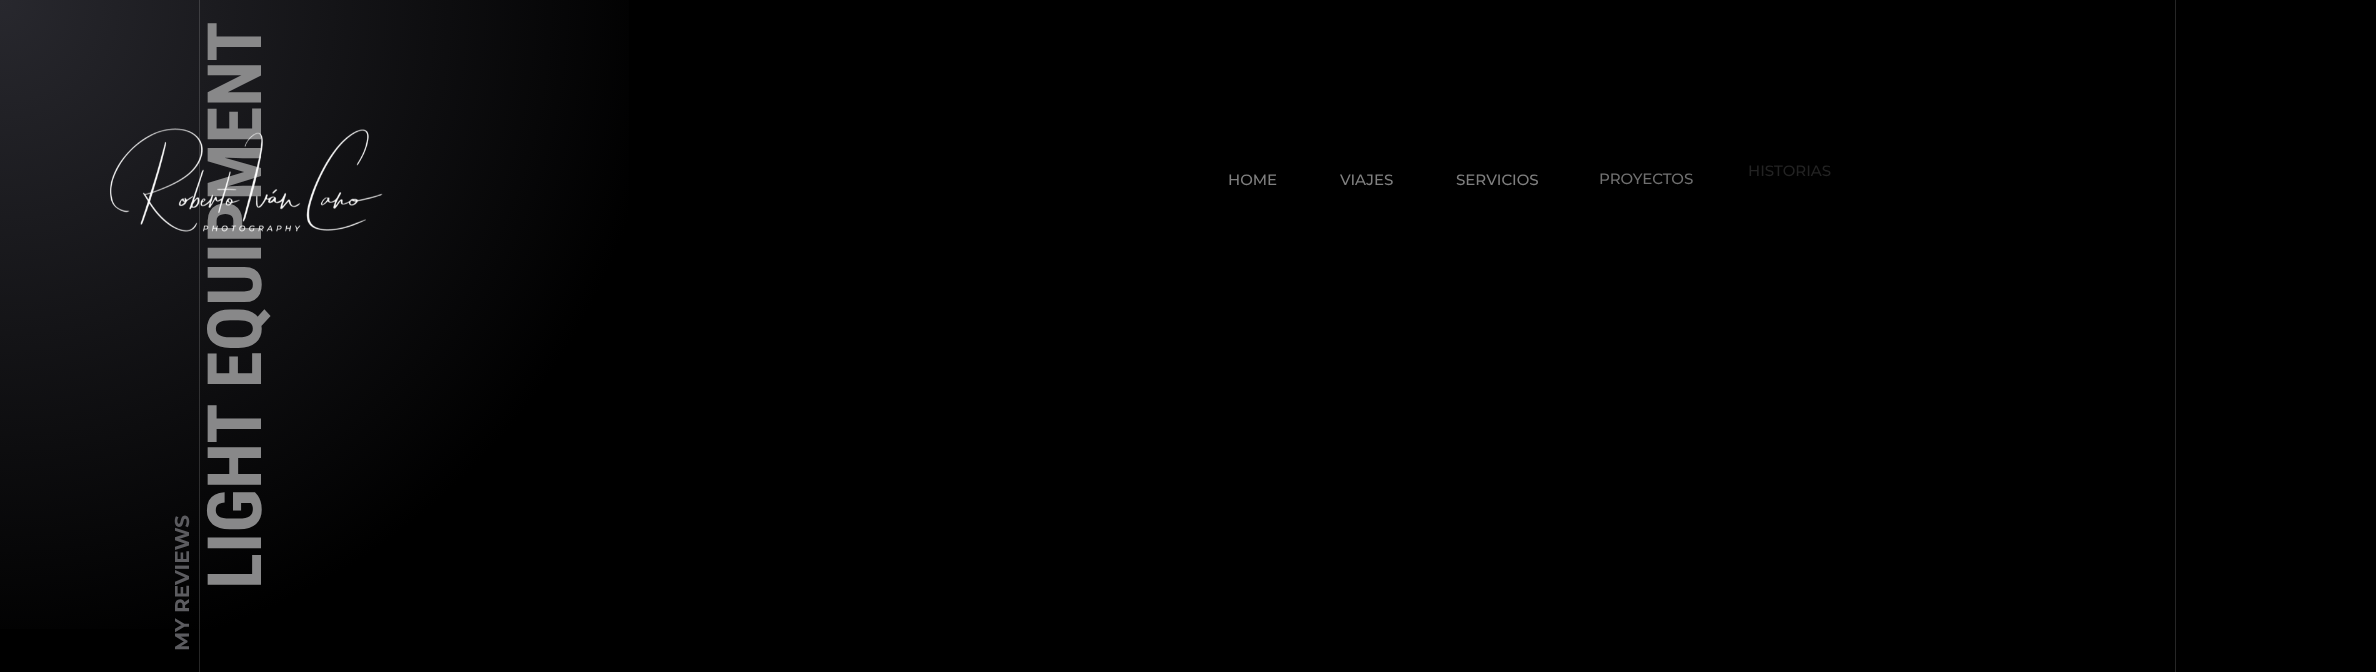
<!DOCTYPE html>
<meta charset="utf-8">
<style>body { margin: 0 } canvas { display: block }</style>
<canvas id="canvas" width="2376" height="672"></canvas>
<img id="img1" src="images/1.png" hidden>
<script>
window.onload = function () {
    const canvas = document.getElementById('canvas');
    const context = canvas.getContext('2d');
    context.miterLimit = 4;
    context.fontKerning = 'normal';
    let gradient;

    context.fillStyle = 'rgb(0, 0, 0)';
    context.fillRect(0, 0, 2376, 672);
    gradient = context.createRadialGradient(0, 0, 0, 0, 0, 951);
    gradient.addColorStop(0, 'rgb(40, 40, 46)');
    gradient.addColorStop(0.7, 'rgb(0, 0, 0)');
    context.fillStyle = gradient;
    context.fillRect(0, 0, 629, 629);
    gradient = context.createRadialGradient(0, 0, 0, 0, 0, 951);
    gradient.addColorStop(0, 'rgb(72, 72, 77)');
    gradient.addColorStop(0.7, 'rgb(38, 38, 38)');
    context.fillStyle = gradient;
    context.fillRect(199, 0, 1, 672);
    context.fillStyle = 'rgb(38, 38, 38)';
    context.fillRect(2175, 0, 1, 672);
    context.font = 'bold 20px Montserrat';
    context.fillStyle = 'rgb(92, 92, 96)';
    context.save();
    context.translate(189, 651);
    context.rotate(-90 * Math.PI / 180);
    context.fillText('MY REVIEWS', 0, 0);
    context.restore();
    context.font = 'bold 75px Roboto Condensed';
    context.fillStyle = 'rgb(136, 136, 137)';
    context.save();
    context.translate(261, 589);
    context.rotate(-90 * Math.PI / 180);
    context.fillText('LIGHT EQUIPMENT', 0, 0);
    context.restore();
    context.drawImage(document.getElementById('img1'), 110, 128, 273, 104);
    context.font = '500 15px Montserrat';
    context.fillStyle = 'rgb(35, 35, 35)';
    context.fillText('HISTORIAS', 1748, 176);
    context.fillStyle = 'rgb(128, 128, 128)';
    context.fillText('HOME', 1228, 185);
    context.fillText('VIAJES', 1340, 185);
    context.fillText('SERVICIOS', 1456, 185);
    context.fillStyle = 'rgb(112, 112, 112)';
    context.fillText('PROYECTOS', 1599, 184);
};
</script>
